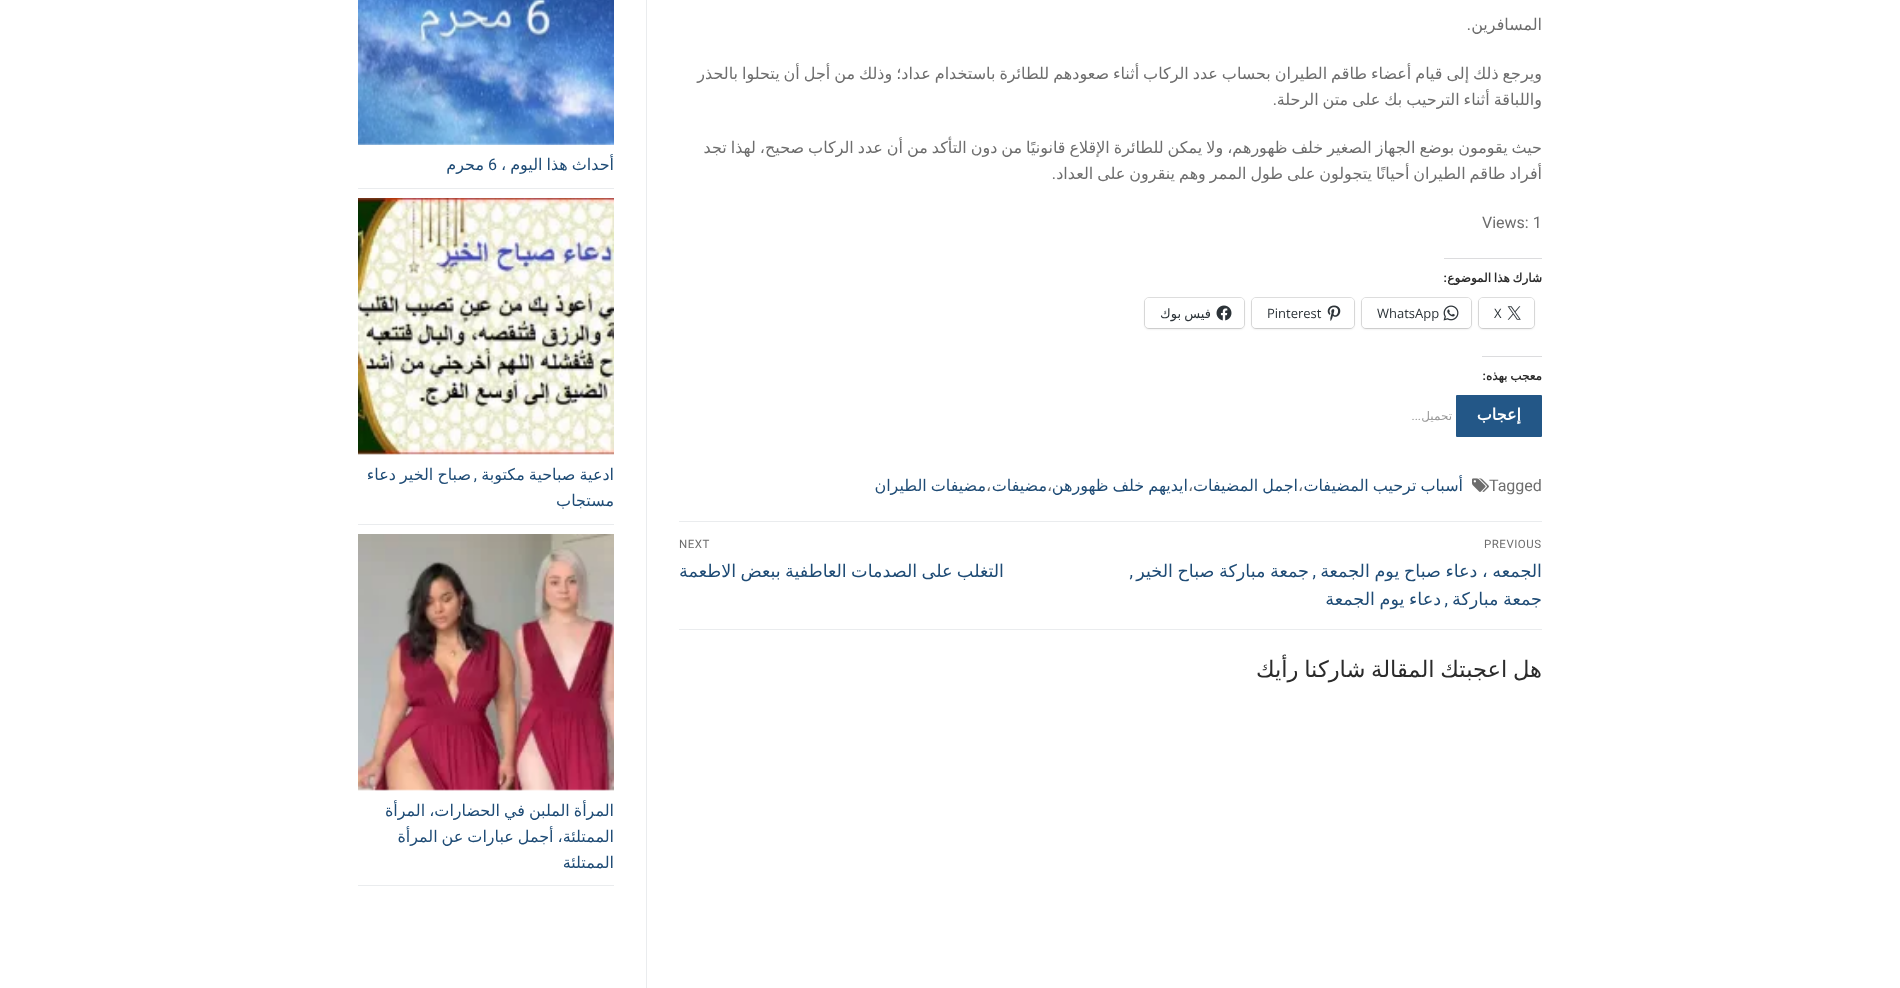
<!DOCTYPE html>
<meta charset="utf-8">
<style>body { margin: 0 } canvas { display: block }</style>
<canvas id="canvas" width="1900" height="988"></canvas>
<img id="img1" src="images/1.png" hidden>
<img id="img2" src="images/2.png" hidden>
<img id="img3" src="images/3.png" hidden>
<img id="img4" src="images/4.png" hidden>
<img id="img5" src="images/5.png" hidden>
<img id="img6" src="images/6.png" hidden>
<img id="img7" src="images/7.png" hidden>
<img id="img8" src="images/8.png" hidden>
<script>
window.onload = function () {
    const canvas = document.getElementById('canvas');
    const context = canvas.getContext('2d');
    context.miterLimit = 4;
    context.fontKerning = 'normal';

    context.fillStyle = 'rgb(255, 255, 255)';
    context.fillRect(0, 0, 1900, 988);
    context.fillStyle = 'rgb(234, 236, 238)';
    context.fillRect(646, 0, 1, 988);
    context.fillStyle = 'rgb(220, 220, 222)';
    context.fillRect(1444, 258, 98, 1);
    context.beginPath();
    context.roundRect(1478.5, 297.5, 56, 31, 4.5);
    context.strokeStyle = 'rgb(224, 224, 224)';
    context.stroke();
    context.fillStyle = 'rgba(0, 0, 0, 0.12)';
    context.filter = 'blur(1px)';
    context.beginPath();
    context.roundRect(1479, 299, 55, 30, 4);
    context.fill();
    context.filter = 'none';
    context.fillStyle = 'rgb(255, 255, 255)';
    context.beginPath();
    context.roundRect(1479, 298, 55, 30, 4);
    context.fill();
    context.drawImage(document.getElementById('img1'), 1507, 306, 14, 14);
    context.beginPath();
    context.roundRect(1361.5, 297.5, 110, 31, 4.5);
    context.stroke();
    context.fillStyle = 'rgba(0, 0, 0, 0.12)';
    context.filter = 'blur(1px)';
    context.beginPath();
    context.roundRect(1362, 299, 109, 30, 4);
    context.fill();
    context.filter = 'none';
    context.fillStyle = 'rgb(255, 255, 255)';
    context.beginPath();
    context.roundRect(1362, 298, 109, 30, 4);
    context.fill();
    context.drawImage(document.getElementById('img2'), 1443, 305, 16, 16);
    context.beginPath();
    context.roundRect(1251.5, 297.5, 103, 31, 4.5);
    context.stroke();
    context.fillStyle = 'rgba(0, 0, 0, 0.12)';
    context.filter = 'blur(1px)';
    context.beginPath();
    context.roundRect(1252, 299, 102, 30, 4);
    context.fill();
    context.filter = 'none';
    context.fillStyle = 'rgb(255, 255, 255)';
    context.beginPath();
    context.roundRect(1252, 298, 102, 30, 4);
    context.fill();
    context.drawImage(document.getElementById('img3'), 1327, 305, 14, 16);
    context.beginPath();
    context.roundRect(1144.5, 297.5, 100, 31, 4.5);
    context.stroke();
    context.fillStyle = 'rgba(0, 0, 0, 0.12)';
    context.filter = 'blur(1px)';
    context.beginPath();
    context.roundRect(1145, 299, 99, 30, 4);
    context.fill();
    context.filter = 'none';
    context.fillStyle = 'rgb(255, 255, 255)';
    context.beginPath();
    context.roundRect(1145, 298, 99, 30, 4);
    context.fill();
    context.drawImage(document.getElementById('img4'), 1216, 305, 16, 16);
    context.fillStyle = 'rgb(220, 220, 222)';
    context.fillRect(1482, 356, 60, 1);
    context.fillStyle = 'rgb(35, 87, 135)';
    context.beginPath();
    context.roundRect(1456, 395, 86, 42, 1);
    context.fill();
    context.drawImage(document.getElementById('img5'), 1472, 478, 17, 14);
    context.fillStyle = 'rgb(234, 236, 238)';
    context.fillRect(679, 521, 863, 1);
    context.fillRect(679, 629, 863, 1);
    context.drawImage(document.getElementById('img6'), 358, 0, 256, 145);
    context.fillRect(358, 188, 256, 1);
    context.drawImage(document.getElementById('img7'), 358, 198, 256, 257);
    context.fillRect(358, 524, 256, 1);
    context.drawImage(document.getElementById('img8'), 358, 534, 256, 257);
    context.fillRect(358, 885, 256, 1);
    context.direction = 'rtl';
    context.font = '16px DejaVu Sans';
    context.fillStyle = 'rgb(109, 109, 109)';
    context.fillText('المسافرين', 1542, 30);
    context.font = '16px Roboto';
    context.fillText('.', 1471, 30);
    context.wordSpacing = '-1.1px';
    context.font = '16px DejaVu Sans';
    context.fillText('ويرجع ذلك إلى قيام أعضاء طاقم الطيران بحساب عدد الركاب أثناء صعودهم للطائرة باستخدام عداد؛ وذلك من أجل أن يتحلوا بالحذر', 1542, 79);
    context.fillText('واللباقة أثناء الترحيب بك على متن الرحلة', 1542, 105);
    context.wordSpacing = '0px';
    context.font = '16px Roboto';
    context.fillText('.', 1277, 105);
    context.wordSpacing = '-1.1px';
    context.font = '16px DejaVu Sans';
    context.fillText('حيث يقومون بوضع الجهاز الصغير خلف ظهورهم، ولا يمكن للطائرة الإقلاع قانونيًا من دون التأكد من أن عدد الركاب صحيح، لهذا تجد', 1542, 153);
    context.fillText('أفراد طاقم الطيران أحيانًا يتجولون على طول الممر وهم ينقرون على العداد', 1542, 179);
    context.wordSpacing = '0px';
    context.font = '16px Roboto';
    context.fillText('.', 1056, 179);
    context.direction = 'ltr';
    context.fillText('Views: 1', 1482, 228);
    context.wordSpacing = '-1px';
    context.direction = 'rtl';
    context.font = 'bold 12px DejaVu Sans';
    context.fillStyle = 'rgb(43, 43, 43)';
    context.fillText('شارك هذا الموضوع', 1542, 282);
    context.wordSpacing = '0px';
    context.font = 'bold 12px Roboto';
    context.fillText(':', 1447, 282);
    context.direction = 'ltr';
    context.font = '13px Open Sans';
    context.fillStyle = 'rgb(44, 51, 56)';
    context.fillText('X', 1494, 318);
    context.fillText('WhatsApp', 1377, 318);
    context.fillText('Pinterest', 1267, 318);
    context.wordSpacing = '-1px';
    context.direction = 'rtl';
    context.font = '13px DejaVu Sans';
    context.fillText('فيس بوك', 1211, 318);
    context.font = 'bold 12px DejaVu Sans';
    context.fillStyle = 'rgb(43, 43, 43)';
    context.fillText('معجب بهذه', 1542, 380);
    context.wordSpacing = '0px';
    context.font = 'bold 12px Roboto';
    context.fillText(':', 1486, 380);
    context.font = 'bold 16px DejaVu Sans';
    context.fillStyle = 'rgb(255, 255, 255)';
    context.fillText('إعجاب', 1521, 420);
    context.font = '12px DejaVu Sans';
    context.fillStyle = 'rgb(153, 153, 153)';
    context.fillText('تحميل', 1452, 420);
    context.font = '12px Roboto';
    context.fillText('...', 1421, 420);
    context.direction = 'ltr';
    context.font = '16px Roboto';
    context.fillStyle = 'rgb(109, 109, 109)';
    context.fillText('Tagged', 1489, 491);
    context.wordSpacing = '-1.1px';
    context.direction = 'rtl';
    context.font = '16px DejaVu Sans';
    context.fillStyle = 'rgb(30, 75, 117)';
    context.fillText('أسباب ترحيب المضيفات', 1463, 491);
    context.wordSpacing = '0px';
    context.direction = 'ltr';
    context.fillStyle = 'rgb(109, 109, 109)';
    context.fillText('،', 1298, 491);
    context.wordSpacing = '-1.1px';
    context.direction = 'rtl';
    context.fillStyle = 'rgb(30, 75, 117)';
    context.fillText('اجمل المضيفات', 1298, 491);
    context.wordSpacing = '0px';
    context.direction = 'ltr';
    context.fillStyle = 'rgb(109, 109, 109)';
    context.fillText('،', 1188, 491);
    context.wordSpacing = '-1.1px';
    context.direction = 'rtl';
    context.fillStyle = 'rgb(30, 75, 117)';
    context.fillText('ايديهم خلف ظهورهن', 1188, 491);
    context.wordSpacing = '0px';
    context.direction = 'ltr';
    context.fillStyle = 'rgb(109, 109, 109)';
    context.fillText('،', 1047, 491);
    context.direction = 'rtl';
    context.fillStyle = 'rgb(30, 75, 117)';
    context.fillText('مضيفات', 1047, 491);
    context.direction = 'ltr';
    context.fillStyle = 'rgb(109, 109, 109)';
    context.fillText('،', 986, 491);
    context.wordSpacing = '-1.1px';
    context.direction = 'rtl';
    context.fillStyle = 'rgb(30, 75, 117)';
    context.fillText('مضيفات الطيران', 986, 491);
    context.letterSpacing = '0.5px';
    context.wordSpacing = '0px';
    context.direction = 'ltr';
    context.font = '11.5px Roboto';
    context.fillStyle = 'rgb(109, 109, 109)';
    context.fillText('PREVIOUS', 1484, 548);
    context.letterSpacing = '0px';
    context.wordSpacing = '-1px';
    context.direction = 'rtl';
    context.font = '17.6px DejaVu Sans';
    context.fillStyle = 'rgb(30, 75, 117)';
    context.fillText('الجمعه ، دعاء صباح يوم الجمعة', 1542, 577);
    context.wordSpacing = '0px';
    context.font = '17.6px Roboto';
    context.fillText(',', 1316, 577);
    context.wordSpacing = '-1px';
    context.font = '17.6px DejaVu Sans';
    context.fillText('جمعة مباركة صباح الخير', 1309, 577);
    context.wordSpacing = '0px';
    context.font = '17.6px Roboto';
    context.fillText(',', 1133, 577);
    context.wordSpacing = '-1px';
    context.font = '17.6px DejaVu Sans';
    context.fillText('جمعة مباركة', 1542, 605);
    context.wordSpacing = '0px';
    context.font = '17.6px Roboto';
    context.fillText(',', 1448, 605);
    context.wordSpacing = '-1px';
    context.font = '17.6px DejaVu Sans';
    context.fillText('دعاء يوم الجمعة', 1441, 605);
    context.letterSpacing = '0.5px';
    context.wordSpacing = '0px';
    context.direction = 'ltr';
    context.font = '11.5px Roboto';
    context.fillStyle = 'rgb(109, 109, 109)';
    context.fillText('NEXT', 679, 548);
    context.letterSpacing = '0px';
    context.wordSpacing = '-1.25px';
    context.direction = 'rtl';
    context.font = '17.6px DejaVu Sans';
    context.fillStyle = 'rgb(30, 75, 117)';
    context.fillText('التغلب على الصدمات العاطفية ببعض الاطعمة', 1004, 577);
    context.wordSpacing = '-1.5px';
    context.font = '22.6px DejaVu Sans';
    context.fillStyle = 'rgb(43, 43, 43)';
    context.fillText('هل اعجبتك المقالة شاركنا رأيك', 1542, 677);
    context.wordSpacing = '-1.1px';
    context.font = '16px DejaVu Sans';
    context.fillStyle = 'rgb(30, 75, 117)';
    context.fillText('أحداث هذا اليوم ،', 614, 170);
    context.wordSpacing = '0px';
    context.direction = 'ltr';
    context.font = '16px Roboto';
    context.fillText('6', 488, 170);
    context.direction = 'rtl';
    context.font = '16px DejaVu Sans';
    context.fillText('محرم', 484, 170);
    context.wordSpacing = '-1px';
    context.fillText('ادعية صباحية مكتوبة', 614, 480);
    context.wordSpacing = '0px';
    context.font = '16px Roboto';
    context.fillText(',', 477, 480);
    context.wordSpacing = '-1px';
    context.font = '16px DejaVu Sans';
    context.fillText('صباح الخير دعاء', 471, 480);
    context.wordSpacing = '0px';
    context.fillText('مستجاب', 614, 506);
    context.wordSpacing = '-1.1px';
    context.fillText('المرأة الملبن في الحضارات، المرأة', 614, 816);
    context.fillText('الممتلئة، أجمل عبارات عن المرأة', 614, 842);
    context.wordSpacing = '0px';
    context.fillText('الممتلئة', 614, 868);
};
</script>
